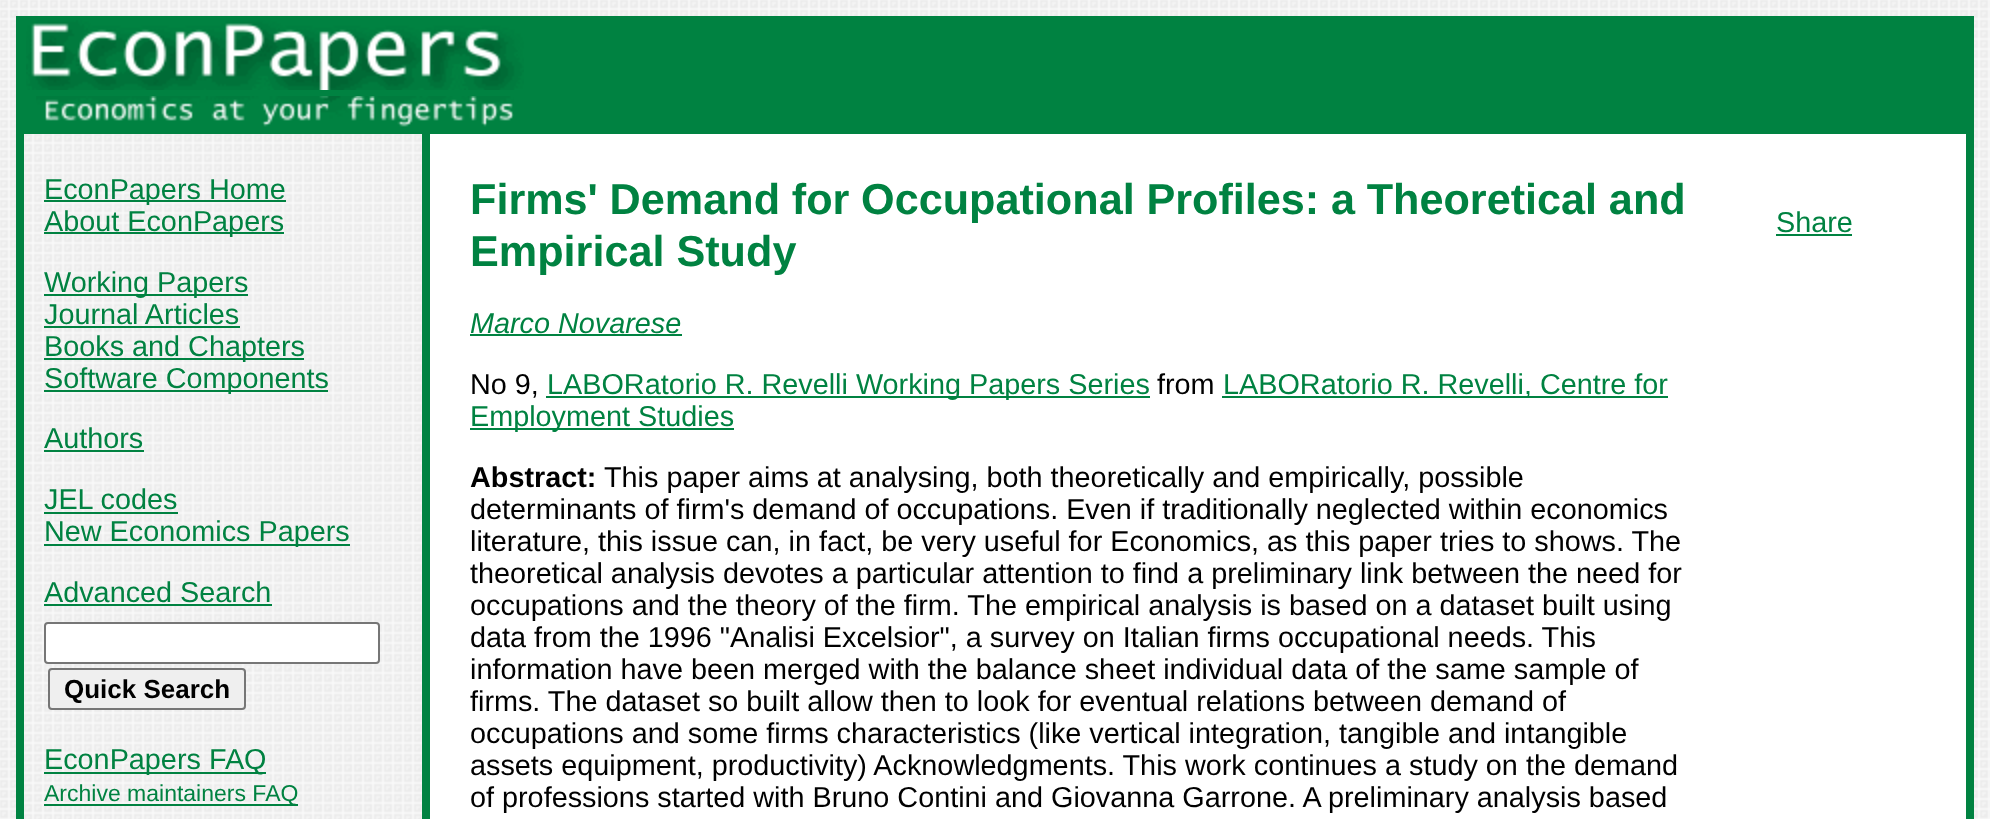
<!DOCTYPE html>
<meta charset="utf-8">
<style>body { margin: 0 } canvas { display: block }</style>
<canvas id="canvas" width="1990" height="819"></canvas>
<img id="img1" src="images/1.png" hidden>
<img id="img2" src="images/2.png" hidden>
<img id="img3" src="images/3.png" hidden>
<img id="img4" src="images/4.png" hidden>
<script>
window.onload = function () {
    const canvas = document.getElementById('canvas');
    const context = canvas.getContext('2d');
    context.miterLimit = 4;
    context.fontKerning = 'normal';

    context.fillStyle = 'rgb(255, 255, 255)';
    context.fillRect(0, 0, 1990, 819);
    context.drawImage(document.getElementById('img1'), 0, 0, 1990, 819);
    context.fillStyle = 'rgb(0, 130, 65)';
    context.fillRect(16, 16, 8, 803);
    context.fillRect(24, 16, 1942, 80);
    context.drawImage(document.getElementById('img2'), 26, 20, 498, 70);
    context.fillRect(1966, 16, 8, 803);
    context.fillRect(24, 96, 1942, 38);
    context.drawImage(document.getElementById('img3'), 36, 96, 478, 31);
    context.drawImage(document.getElementById('img4'), 24, 134, 398, 685);
    context.fillRect(44, 200, 242, 2);
    context.fillRect(44, 232, 240, 2);
    context.fillRect(44, 294, 204, 2);
    context.fillRect(44, 326, 196, 2);
    context.fillRect(44, 358, 260, 2);
    context.fillRect(44, 390, 284, 2);
    context.fillRect(44, 450, 100, 2);
    context.fillRect(44, 512, 134, 2);
    context.fillRect(44, 544, 306, 2);
    context.fillRect(44, 604, 228, 2);
    context.fillStyle = 'rgb(255, 255, 255)';
    context.beginPath();
    context.roundRect(45, 623, 334, 40, 3);
    context.fill();
    context.strokeStyle = 'rgb(118, 118, 118)';
    context.lineWidth = 2;
    context.stroke();
    context.fillStyle = 'rgb(239, 239, 239)';
    context.beginPath();
    context.roundRect(49, 669, 196, 40, 3);
    context.fill();
    context.stroke();
    context.fillStyle = 'rgb(0, 130, 65)';
    context.fillRect(44, 772, 222, 2);
    context.fillRect(44, 804, 254, 2);
    context.fillRect(422, 134, 8, 685);
    context.fillStyle = 'rgb(255, 255, 255)';
    context.fillRect(430, 134, 1536, 685);
    context.fillStyle = 'rgb(0, 130, 65)';
    context.fillRect(470, 334, 212, 2);
    context.fillRect(546, 396, 604, 2);
    context.fillRect(1222, 396, 446, 2);
    context.fillRect(470, 428, 264, 2);
    context.fillRect(1776, 234, 76, 2);
    context.font = '28.8px Liberation Sans';
    context.fillText('EconPapers Home', 44, 199);
    context.fillText('About EconPapers', 44, 231);
    context.fillText('Working Papers', 44, 292);
    context.fillText('Journal Articles', 44, 324);
    context.fillText('Books and Chapters', 44, 356);
    context.fillText('Software Components', 44, 388);
    context.fillText('Authors', 44, 448);
    context.fillText('JEL codes', 44, 509);
    context.fillText('New Economics Papers', 44, 541);
    context.fillText('Advanced Search', 44, 602);
    context.font = 'bold 26px Liberation Sans';
    context.fillStyle = 'rgb(0, 0, 0)';
    context.fillText('Quick Search', 64, 698);
    context.font = '28.8px Liberation Sans';
    context.fillStyle = 'rgb(0, 130, 65)';
    context.fillText('EconPapers FAQ', 44, 769);
    context.font = '23px Liberation Sans';
    context.fillText('Archive maintainers FAQ', 44, 801);
    context.wordSpacing = '-0.25px';
    context.font = 'bold 43.2px Liberation Sans';
    context.fillText('Firms\' Demand for Occupational Profiles: a Theoretical and', 470, 214);
    context.wordSpacing = '0px';
    context.fillText('Empirical Study', 470, 266);
    context.font = 'italic 28.8px Liberation Sans';
    context.fillText('Marco Novarese', 470, 333);
    context.font = '28.8px Liberation Sans';
    context.fillStyle = 'rgb(0, 0, 0)';
    context.fillText('No 9,', 470, 394);
    context.fillStyle = 'rgb(0, 130, 65)';
    context.fillText('LABORatorio R. Revelli Working Papers Series', 547, 394);
    context.fillStyle = 'rgb(0, 0, 0)';
    context.fillText('from', 1157, 394);
    context.fillStyle = 'rgb(0, 130, 65)';
    context.fillText('LABORatorio R. Revelli, Centre for', 1223, 394);
    context.fillText('Employment Studies', 470, 426);
    context.font = 'bold 28.8px Liberation Sans';
    context.fillStyle = 'rgb(0, 0, 0)';
    context.fillText('Abstract:', 470, 487);
    context.font = '28.8px Liberation Sans';
    context.fillText('This paper aims at analysing, both theoretically and empirically, possible', 604, 487);
    context.fillText('determinants of firm\'s demand of occupations. Even if traditionally neglected within economics', 470, 519);
    context.fillText('literature, this issue can, in fact, be very useful for Economics, as this paper tries to shows. The', 470, 551);
    context.fillText('theoretical analysis devotes a particular attention to find a preliminary link between the need for', 470, 583);
    context.fillText('occupations and the theory of the firm. The empirical analysis is based on a dataset built using', 470, 615);
    context.fillText('data from the 1996 "Analisi Excelsior", a survey on Italian firms occupational needs. This', 470, 647);
    context.fillText('information have been merged with the balance sheet individual data of the same sample of', 470, 679);
    context.fillText('firms. The dataset so built allow then to look for eventual relations between demand of', 470, 711);
    context.fillText('occupations and some firms characteristics (like vertical integration, tangible and intangible', 470, 743);
    context.fillText('assets equipment, productivity) Acknowledgments. This work continues a study on the demand', 470, 775);
    context.fillText('of professions started with Bruno Contini and Giovanna Garrone. A preliminary analysis based', 470, 807);
    context.fillStyle = 'rgb(0, 130, 65)';
    context.fillText('Share', 1776, 232);
};
</script>
